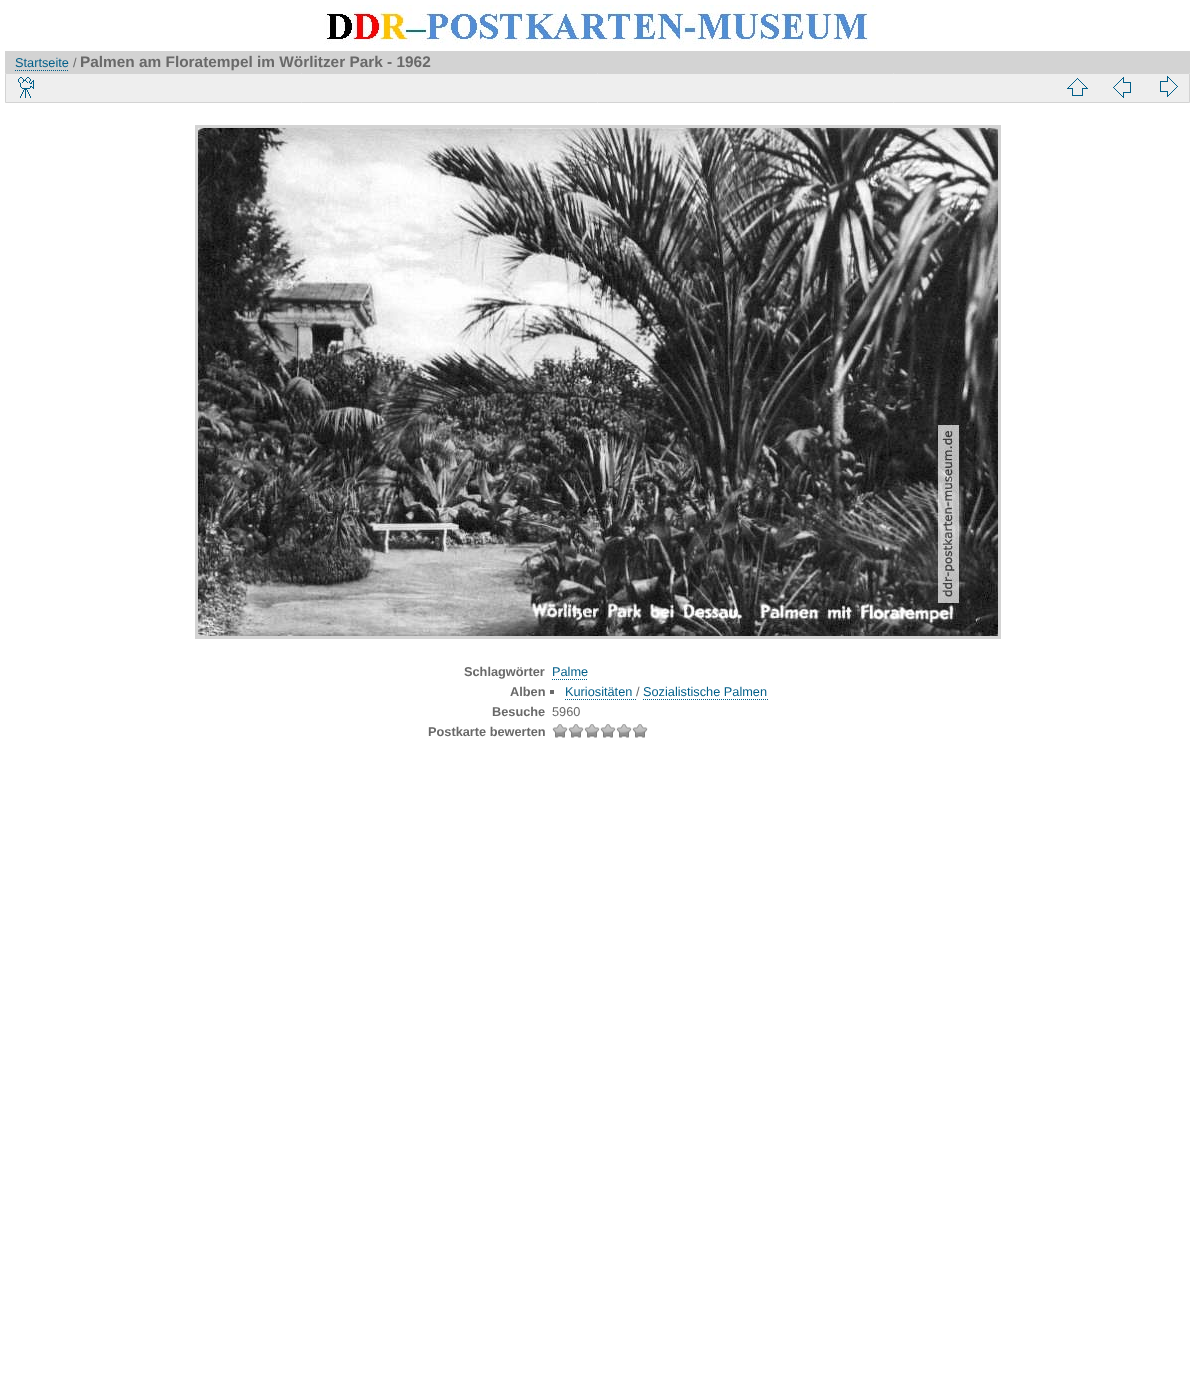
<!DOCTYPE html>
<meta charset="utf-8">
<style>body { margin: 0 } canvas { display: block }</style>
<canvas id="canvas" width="1195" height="1380"></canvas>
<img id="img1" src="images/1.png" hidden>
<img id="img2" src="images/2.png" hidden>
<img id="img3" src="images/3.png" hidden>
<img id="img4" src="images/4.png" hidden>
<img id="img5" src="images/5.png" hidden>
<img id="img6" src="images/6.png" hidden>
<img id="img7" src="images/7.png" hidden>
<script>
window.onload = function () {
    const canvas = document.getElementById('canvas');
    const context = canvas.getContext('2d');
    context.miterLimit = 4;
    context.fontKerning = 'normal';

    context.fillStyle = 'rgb(255, 255, 255)';
    context.fillRect(0, 0, 1195, 1380);
    context.drawImage(document.getElementById('img1'), 324, 5, 552, 43);
    context.fillStyle = 'rgb(211, 211, 211)';
    context.fillRect(5, 51, 1185, 22);
    context.beginPath();
    context.moveTo(15, 70.5);
    context.lineTo(69, 70.5);
    context.strokeStyle = 'rgb(0, 94, 137)';
    context.setLineDash([1, 1]);
    context.stroke();
    context.fillStyle = 'rgb(238, 238, 238)';
    context.beginPath();
    context.rect(5.5, 73.5, 1184, 29);
    context.fill();
    context.strokeStyle = 'rgb(211, 211, 211)';
    context.setLineDash([]);
    context.stroke();
    context.drawImage(document.getElementById('img2'), 18, 77, 16, 21);
    context.drawImage(document.getElementById('img3'), 1067, 78, 21, 18);
    context.drawImage(document.getElementById('img4'), 1113, 77, 18, 21);
    context.drawImage(document.getElementById('img5'), 1160, 76, 18, 21);
    context.lineWidth = 3;
    context.strokeRect(196.5, 126.5, 803, 511);
    context.drawImage(document.getElementById('img6'), 198, 128, 800, 508);
    context.beginPath();
    context.moveTo(552, 679.5);
    context.lineTo(588, 679.5);
    context.strokeStyle = 'rgb(0, 94, 137)';
    context.lineWidth = 1;
    context.setLineDash([1, 1]);
    context.stroke();
    context.fillStyle = 'rgb(105, 105, 105)';
    context.fillRect(550, 690, 4, 4);
    context.beginPath();
    context.moveTo(565, 699.5);
    context.lineTo(636, 699.5);
    context.stroke();
    context.beginPath();
    context.moveTo(643, 699.5);
    context.lineTo(768, 699.5);
    context.stroke();
    context.drawImage(document.getElementById('img7'), 552, 724, 16, 14);
    context.drawImage(document.getElementById('img7'), 568, 724, 16, 14);
    context.drawImage(document.getElementById('img7'), 584, 724, 16, 14);
    context.drawImage(document.getElementById('img7'), 600, 724, 16, 14);
    context.drawImage(document.getElementById('img7'), 616, 724, 16, 14);
    context.drawImage(document.getElementById('img7'), 632, 724, 16, 14);
    context.font = '12.75px Liberation Sans';
    context.fillStyle = 'rgb(0, 94, 137)';
    context.fillText('Startseite', 15, 67);
    context.fillStyle = 'rgb(105, 105, 105)';
    context.fillText('/', 73, 67);
    context.font = 'bold 15.4px Liberation Sans';
    context.fillText('Palmen am Floratempel im Wörlitzer Park - 1962', 80, 67);
    context.font = 'bold 12.75px Liberation Sans';
    context.fillText('Schlagwörter', 464, 676);
    context.font = '12.75px Liberation Sans';
    context.fillStyle = 'rgb(0, 94, 137)';
    context.fillText('Palme', 552, 676);
    context.font = 'bold 12.75px Liberation Sans';
    context.fillStyle = 'rgb(105, 105, 105)';
    context.fillText('Alben', 510, 696);
    context.font = '12.75px Liberation Sans';
    context.fillStyle = 'rgb(0, 94, 137)';
    context.fillText('Kuriositäten', 565, 696);
    context.fillStyle = 'rgb(105, 105, 105)';
    context.fillText('/', 636, 696);
    context.fillStyle = 'rgb(0, 94, 137)';
    context.fillText('Sozialistische Palmen', 643, 696);
    context.font = 'bold 12.75px Liberation Sans';
    context.fillStyle = 'rgb(105, 105, 105)';
    context.fillText('Besuche', 492, 716);
    context.font = '12.75px Liberation Sans';
    context.fillText('5960', 552, 716);
    context.font = 'bold 12.75px Liberation Sans';
    context.fillText('Postkarte bewerten', 428, 736);
};
</script>
